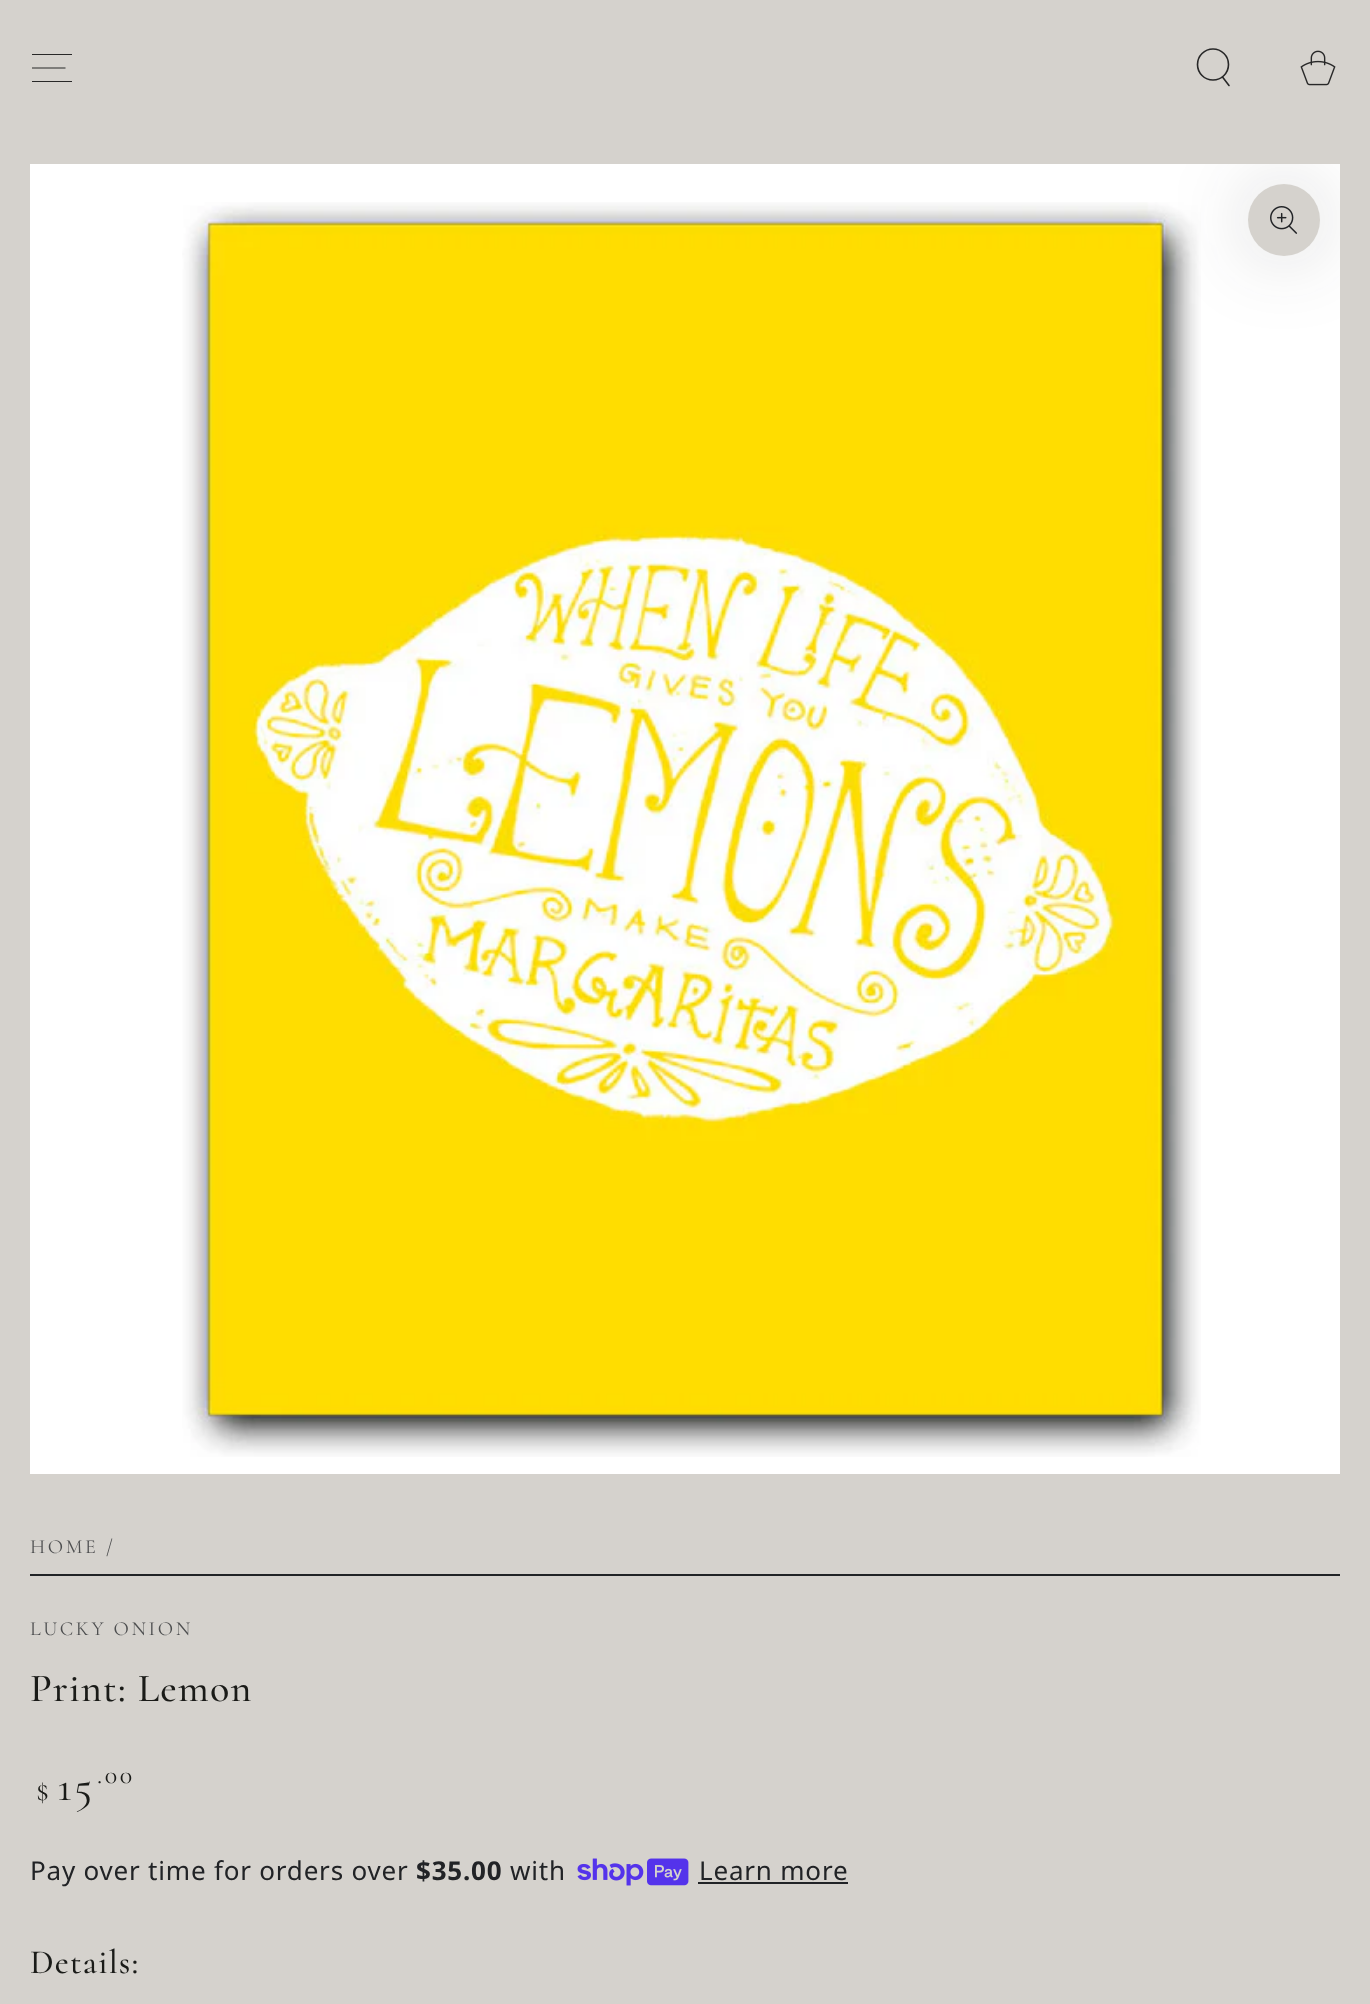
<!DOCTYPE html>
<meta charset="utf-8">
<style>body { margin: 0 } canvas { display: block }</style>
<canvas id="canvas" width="1370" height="2004"></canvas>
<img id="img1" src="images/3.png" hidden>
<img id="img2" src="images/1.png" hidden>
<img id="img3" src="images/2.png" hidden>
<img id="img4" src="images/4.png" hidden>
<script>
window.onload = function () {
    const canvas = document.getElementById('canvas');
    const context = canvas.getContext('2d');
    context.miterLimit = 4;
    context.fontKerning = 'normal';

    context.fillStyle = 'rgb(213, 210, 205)';
    context.fillRect(0, 0, 1370, 2004);
    context.beginPath();
    context.moveTo(32, 81.5);
    context.lineTo(72, 81.5);
    context.moveTo(32, 68);
    context.lineTo(65.5, 68);
    context.moveTo(32, 54.5);
    context.lineTo(72, 54.5);
    context.strokeStyle = 'rgb(40, 40, 40)';
    context.lineWidth = 1.2;
    context.stroke();
    context.fillStyle = 'rgb(255, 255, 255)';
    context.fillRect(30, 164, 1310, 1310);
    context.drawImage(document.getElementById('img1'), 182, 202, 1019, 1255);
    context.save();
    context.beginPath();
    context.rect(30, 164, 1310, 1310);
    context.clip();
    context.fillStyle = 'rgba(33, 35, 38, 0.2)';
    context.filter = 'blur(40px)';
    context.beginPath();
    context.roundRect(1248, 184, 72, 72, 36);
    context.fill();
    context.filter = 'none';
    context.restore();
    context.beginPath();
    context.arc(1213, 64.5, 15.5, 0, 2 * Math.PI);
    context.lineWidth = 1.6;
    context.stroke();
    context.beginPath();
    context.moveTo(1222.5, 77);
    context.lineTo(1229, 85.5);
    context.lineCap = 'round';
    context.stroke();
    context.drawImage(document.getElementById('img2'), 1300, 50, 36, 36);
    context.fillStyle = 'rgb(213, 210, 205)';
    context.beginPath();
    context.arc(1284, 220, 36, 0, 2 * Math.PI);
    context.fill();
    context.drawImage(document.getElementById('img3'), 1270, 206, 28, 28);
    context.fillStyle = 'rgb(33, 35, 38)';
    context.fillRect(30, 1574, 1310, 2);
    context.drawImage(document.getElementById('img4'), 577, 1858, 112, 28);
    context.fillRect(698, 1882, 150, 2);
    context.letterSpacing = '2.6px';
    context.font = '20px Cormorant';
    context.fillStyle = 'rgb(78, 79, 80)';
    context.fillText('HOME', 30, 1553);
    context.fillText('/', 106, 1553);
    context.fillText('LUCKY ONION', 30, 1635);
    context.letterSpacing = '1.25px';
    context.font = '500 40px Cormorant';
    context.fillStyle = 'rgb(26, 27, 24)';
    context.fillText('Print: Lemon', 30, 1701);
    context.letterSpacing = '2.6px';
    context.font = '26px Cormorant';
    context.fillText('.00', 97, 1783);
    context.font = '31px Cormorant';
    context.fillText('$', 36, 1800);
    context.font = '44px Cormorant';
    context.fillText('15', 57, 1800);
    context.letterSpacing = '0.8px';
    context.font = '26px Noto Sans';
    context.fillStyle = 'rgb(33, 35, 38)';
    context.fillText('Pay over time for orders over', 30, 1880);
    context.font = 'bold 26px Noto Sans';
    context.fillText('$35.00', 416, 1880);
    context.font = '26px Noto Sans';
    context.fillText('with', 510, 1880);
    context.fillText('Learn more', 699, 1880);
    context.letterSpacing = '1.25px';
    context.font = '500 34px Cormorant';
    context.fillStyle = 'rgb(26, 27, 24)';
    context.fillText('Details:', 30, 1973);
};
</script>
